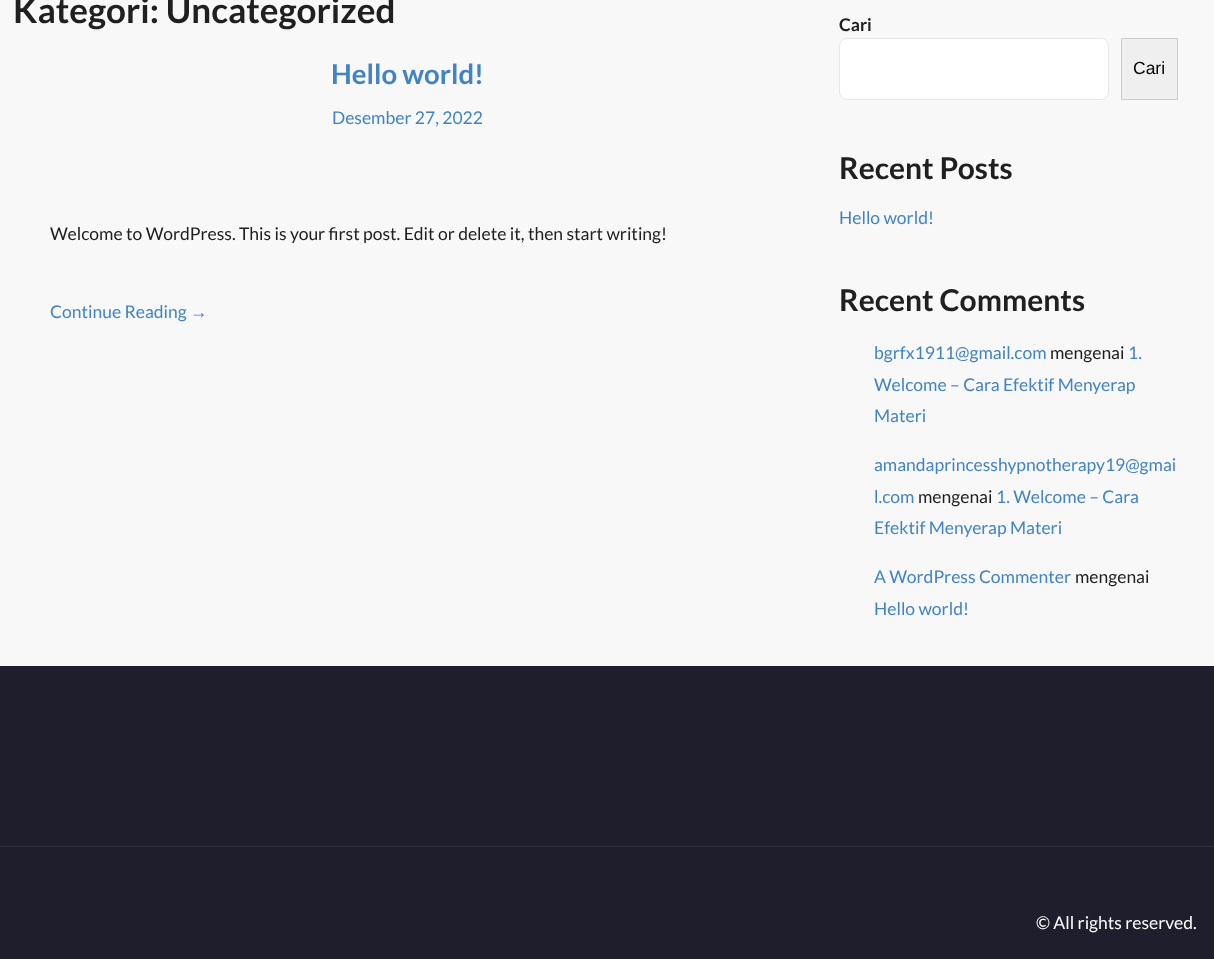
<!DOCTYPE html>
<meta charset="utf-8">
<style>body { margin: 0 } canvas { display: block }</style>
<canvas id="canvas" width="1214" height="959"></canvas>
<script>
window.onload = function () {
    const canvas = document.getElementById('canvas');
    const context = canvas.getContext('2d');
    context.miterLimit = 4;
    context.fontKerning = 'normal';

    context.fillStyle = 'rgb(248, 248, 248)';
    context.fillRect(0, 0, 1214, 959);
    context.fillStyle = 'rgb(255, 255, 255)';
    context.beginPath();
    context.roundRect(839, 38, 270, 62, 8);
    context.fill();
    context.beginPath();
    context.roundRect(839.5, 38.5, 269, 61, 7.5);
    context.strokeStyle = 'rgba(10, 8, 59, 0.1)';
    context.stroke();
    context.fillStyle = 'rgb(239, 239, 239)';
    context.beginPath();
    context.rect(1121.5, 38.5, 56, 61);
    context.fill();
    context.strokeStyle = 'rgb(204, 204, 204)';
    context.stroke();
    context.fillStyle = 'rgb(30, 30, 44)';
    context.fillRect(0, 666, 1214, 293);
    context.fillStyle = 'rgb(48, 48, 61)';
    context.fillRect(0, 846, 1214, 1);
    context.font = 'bold 35px Lato';
    context.fillStyle = 'rgb(32, 32, 32)';
    context.fillText('Kategori: Uncategorized', 13, 23);
    context.font = 'bold 27.5px Lato';
    context.fillStyle = 'rgb(65, 131, 196)';
    context.fillText('Hello world!', 331, 84);
    context.font = '17.5px Lato';
    context.fillText('Desember 27, 2022', 332, 124);
    context.fillStyle = 'rgb(32, 32, 32)';
    context.fillText('Welcome to WordPress. This is your first post. Edit or delete it, then start writing!', 50, 240);
    context.fillStyle = 'rgb(65, 131, 196)';
    context.fillText('Continue Reading', 50, 318);
    context.font = '17.5px Liberation Sans';
    context.fillText('→', 190, 318);
    context.font = 'bold 17.5px Lato';
    context.fillStyle = 'rgb(32, 32, 32)';
    context.fillText('Cari', 839, 31);
    context.font = '17.5px Liberation Sans';
    context.fillStyle = 'rgb(0, 0, 0)';
    context.fillText('Cari', 1133, 74);
    context.font = 'bold 30px Lato';
    context.fillStyle = 'rgb(32, 32, 32)';
    context.fillText('Recent Posts', 839, 179);
    context.font = '17.5px Lato';
    context.fillStyle = 'rgb(65, 131, 196)';
    context.fillText('Hello world!', 839, 224);
    context.font = 'bold 30px Lato';
    context.fillStyle = 'rgb(32, 32, 32)';
    context.fillText('Recent Comments', 839, 311);
    context.font = '17.5px Lato';
    context.fillStyle = 'rgb(65, 131, 196)';
    context.fillText('bgrfx1911@gmail.com', 874, 359);
    context.fillStyle = 'rgb(32, 32, 32)';
    context.fillText('mengenai', 1050, 359);
    context.fillStyle = 'rgb(65, 131, 196)';
    context.fillText('1.', 1128, 359);
    context.fillText('Welcome – Cara Efektif Menyerap', 874, 391);
    context.fillText('Materi', 874, 422);
    context.fillText('amandaprincesshypnotherapy19@gmai', 874, 471);
    context.fillText('l.com', 874, 503);
    context.fillStyle = 'rgb(32, 32, 32)';
    context.fillText('mengenai', 918, 503);
    context.fillStyle = 'rgb(65, 131, 196)';
    context.fillText('1. Welcome – Cara', 996, 503);
    context.fillText('Efektif Menyerap Materi', 874, 534);
    context.fillText('A WordPress Commenter', 874, 583);
    context.fillStyle = 'rgb(32, 32, 32)';
    context.fillText('mengenai', 1075, 583);
    context.fillStyle = 'rgb(65, 131, 196)';
    context.fillText('Hello world!', 874, 615);
    context.fillStyle = 'rgb(255, 255, 255)';
    context.fillText('© All rights reserved.', 1036, 929);
};
</script>
